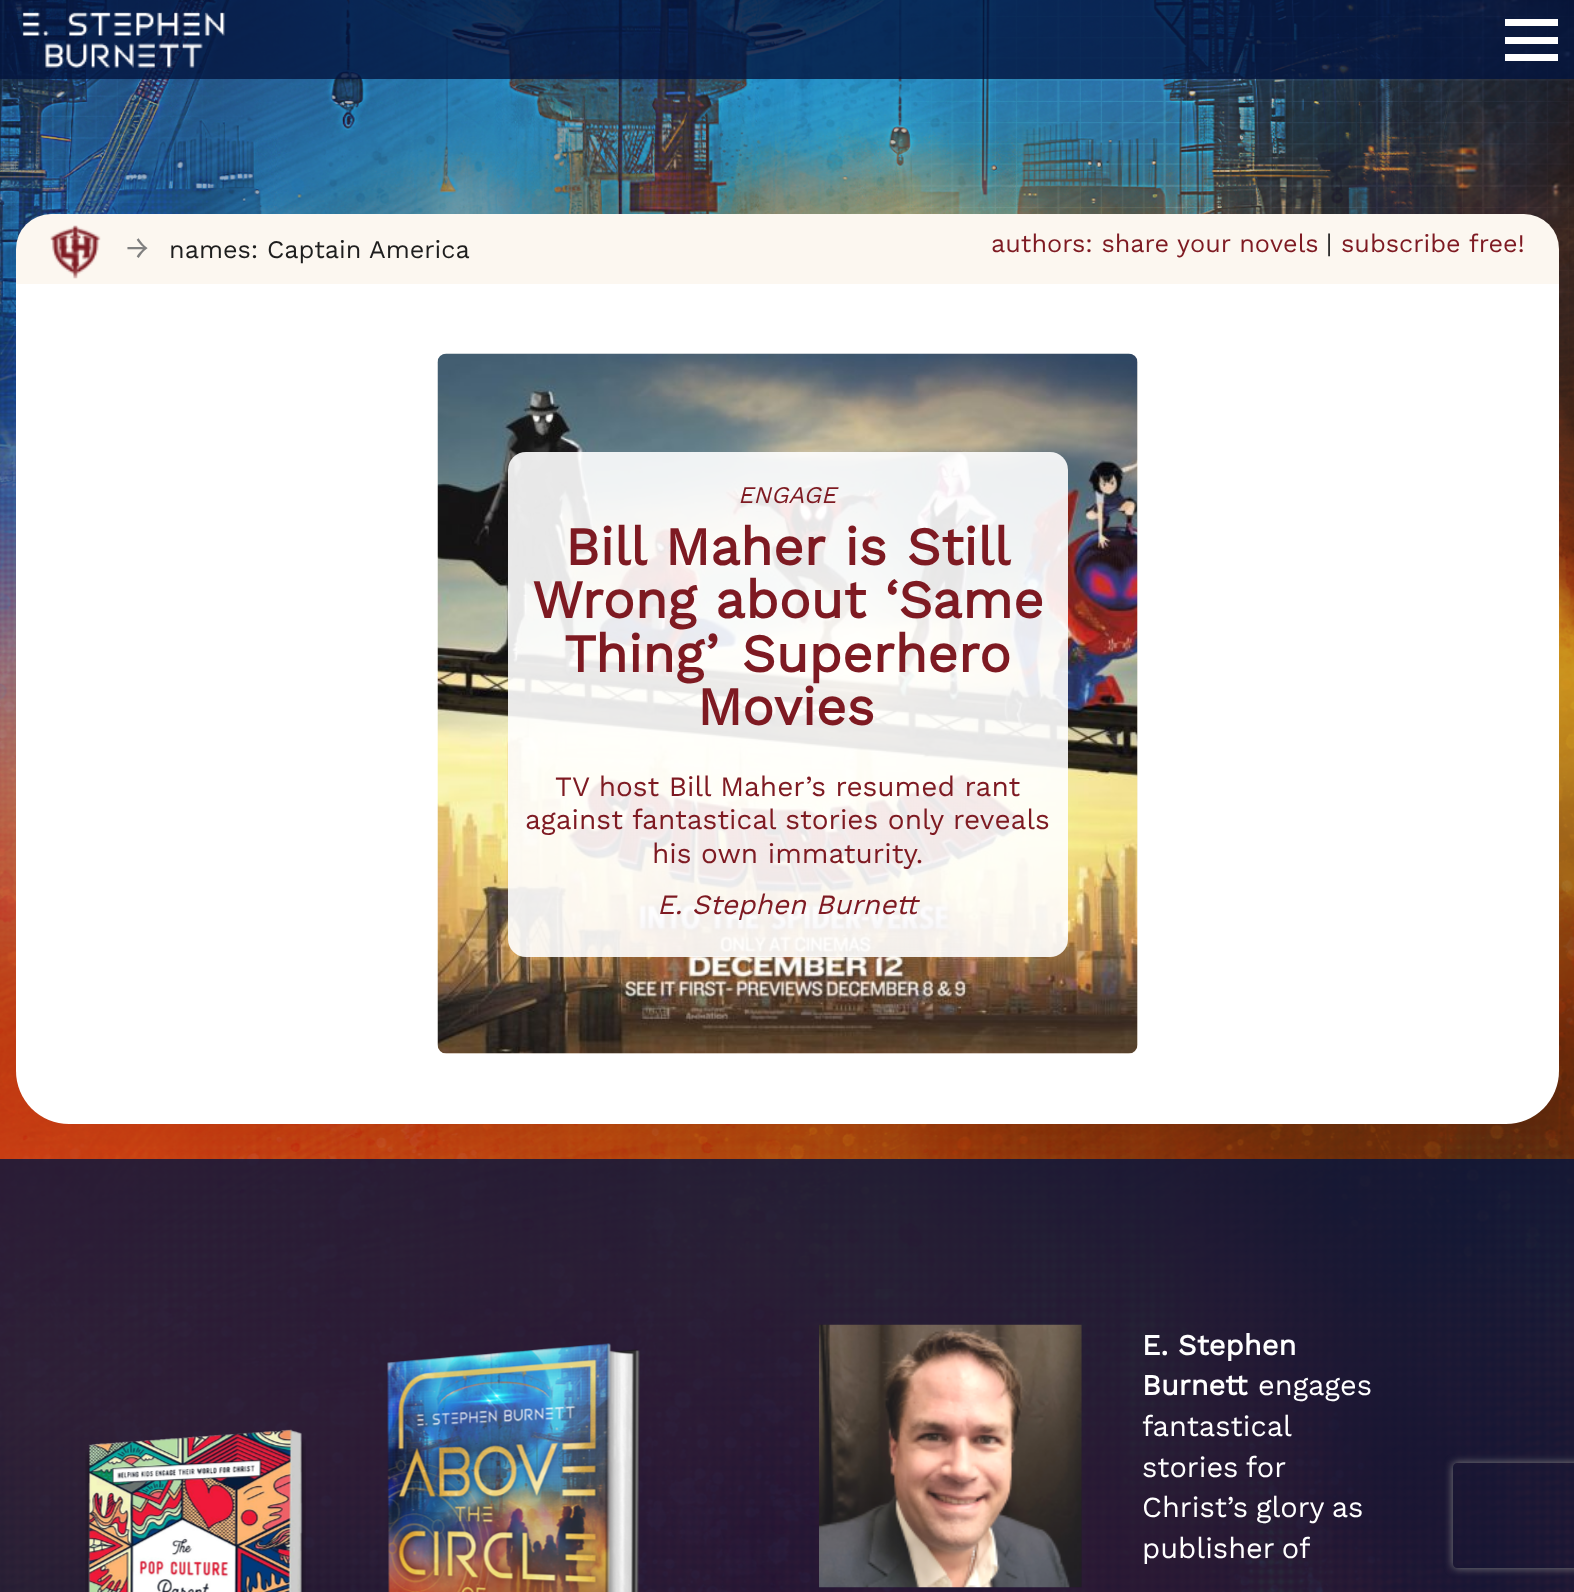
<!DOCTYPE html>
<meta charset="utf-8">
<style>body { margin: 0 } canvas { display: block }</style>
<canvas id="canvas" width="1574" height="1592"></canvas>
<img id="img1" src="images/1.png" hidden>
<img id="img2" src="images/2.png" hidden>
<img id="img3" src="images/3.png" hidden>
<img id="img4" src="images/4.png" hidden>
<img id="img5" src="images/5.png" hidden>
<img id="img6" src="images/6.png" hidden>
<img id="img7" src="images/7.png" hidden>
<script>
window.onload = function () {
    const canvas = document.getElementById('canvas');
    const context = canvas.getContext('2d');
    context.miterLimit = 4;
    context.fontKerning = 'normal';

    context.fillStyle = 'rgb(255, 255, 255)';
    context.fillRect(0, 0, 1574, 1592);
    context.drawImage(document.getElementById('img1'), 0, 0, 1574, 1592);
    context.fillStyle = 'rgba(2, 20, 62, 0.8)';
    context.fillRect(0, 0, 1574, 79);
    context.drawImage(document.getElementById('img2'), 22, 12, 203, 56);
    context.fillStyle = 'rgb(255, 255, 255)';
    context.fillRect(1505, 37, 53, 7);
    context.fillRect(1505, 19, 53, 7);
    context.fillRect(1505, 54, 53, 7);
    context.beginPath();
    context.roundRect(16, 214, 1543, 910, 53);
    context.fill();
    context.fillStyle = 'rgb(252, 247, 240)';
    context.beginPath();
    context.roundRect(16, 214, 1543, 70, [35, 35, 0, 0]);
    context.fill();
    context.drawImage(document.getElementById('img3'), 50, 225, 51, 54);
    context.beginPath();
    context.roundRect(438, 354, 700, 700, 9);
    context.fill();
    context.drawImage(document.getElementById('img4'), 437, 353, 701, 701);
    context.fillStyle = 'rgba(255, 255, 255, 0.9)';
    context.beginPath();
    context.roundRect(508, 452, 560, 505, 18);
    context.fill();
    context.fillStyle = 'rgba(2, 20, 62, 0.8)';
    context.fillRect(0, 1159, 1574, 433);
    context.drawImage(document.getElementById('img5'), 85, 1429, 221, 163);
    context.drawImage(document.getElementById('img6'), 387, 1343, 253, 249);
    context.drawImage(document.getElementById('img7'), 819, 1324, 263, 264);
    context.save();
    context.beginPath();
    context.moveTo(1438, 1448);
    context.lineTo(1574, 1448);
    context.lineTo(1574, 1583);
    context.lineTo(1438, 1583);
    context.closePath();
    context.moveTo(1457, 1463);
    context.lineTo(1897, 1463);
    context.bezierCurveTo(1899, 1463, 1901, 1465, 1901, 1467);
    context.lineTo(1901, 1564);
    context.bezierCurveTo(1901, 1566, 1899, 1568, 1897, 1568);
    context.lineTo(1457, 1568);
    context.bezierCurveTo(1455, 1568, 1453, 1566, 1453, 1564);
    context.lineTo(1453, 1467);
    context.bezierCurveTo(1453, 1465, 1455, 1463, 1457, 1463);
    context.closePath();
    context.clip('evenodd');
    context.fillStyle = 'rgb(128, 128, 128)';
    context.filter = 'blur(4.5px)';
    context.beginPath();
    context.roundRect(1453, 1463, 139, 105, 4);
    context.fill();
    context.filter = 'none';
    context.restore();
    context.font = '30px Work Sans';
    context.fillStyle = 'rgb(128, 128, 128)';
    context.fillText('→', 126, 258);
    context.font = '25.25px Work Sans';
    context.fillStyle = 'rgb(30, 30, 30)';
    context.fillText('names: Captain America', 169, 258);
    context.fillStyle = 'rgb(126, 26, 34)';
    context.fillText('authors: share your novels', 991, 252);
    context.fillStyle = 'rgb(30, 30, 30)';
    context.fillText('|', 1326, 252);
    context.fillStyle = 'rgb(126, 26, 34)';
    context.fillText('subscribe free!', 1341, 252);
    context.font = 'italic 24px Work Sans';
    context.fillText('ENGAGE', 738, 503);
    context.wordSpacing = '2px';
    context.font = 'bold 53.25px Work Sans';
    context.fillText('Bill Maher is Still', 565, 565);
    context.wordSpacing = '1px';
    context.fillText('Wrong about ‘Same', 532, 618);
    context.wordSpacing = '5px';
    context.fillText('Thing’ Superhero', 564, 672);
    context.wordSpacing = '0px';
    context.fillText('Movies', 697, 725);
    context.font = '28px Work Sans';
    context.fillText('TV host Bill Maher’s resumed rant', 555, 796);
    context.fillText('against fantastical stories only reveals', 525, 829);
    context.fillText('his own immaturity.', 652, 863);
    context.font = 'italic 28px Work Sans';
    context.fillText('E. Stephen Burnett', 657, 914);
    context.font = 'bold 29px Work Sans';
    context.fillStyle = 'rgb(255, 255, 255)';
    context.fillText('E. Stephen', 1142, 1355);
    context.fillText('Burnett', 1142, 1395);
    context.font = '29px Work Sans';
    context.fillText('engages', 1258, 1395);
    context.fillText('fantastical', 1142, 1436);
    context.wordSpacing = '-2px';
    context.fillText('stories for', 1142, 1477);
    context.fillText('Christ’s glory as', 1142, 1517);
    context.fillText('publisher of', 1142, 1558);
};
</script>
